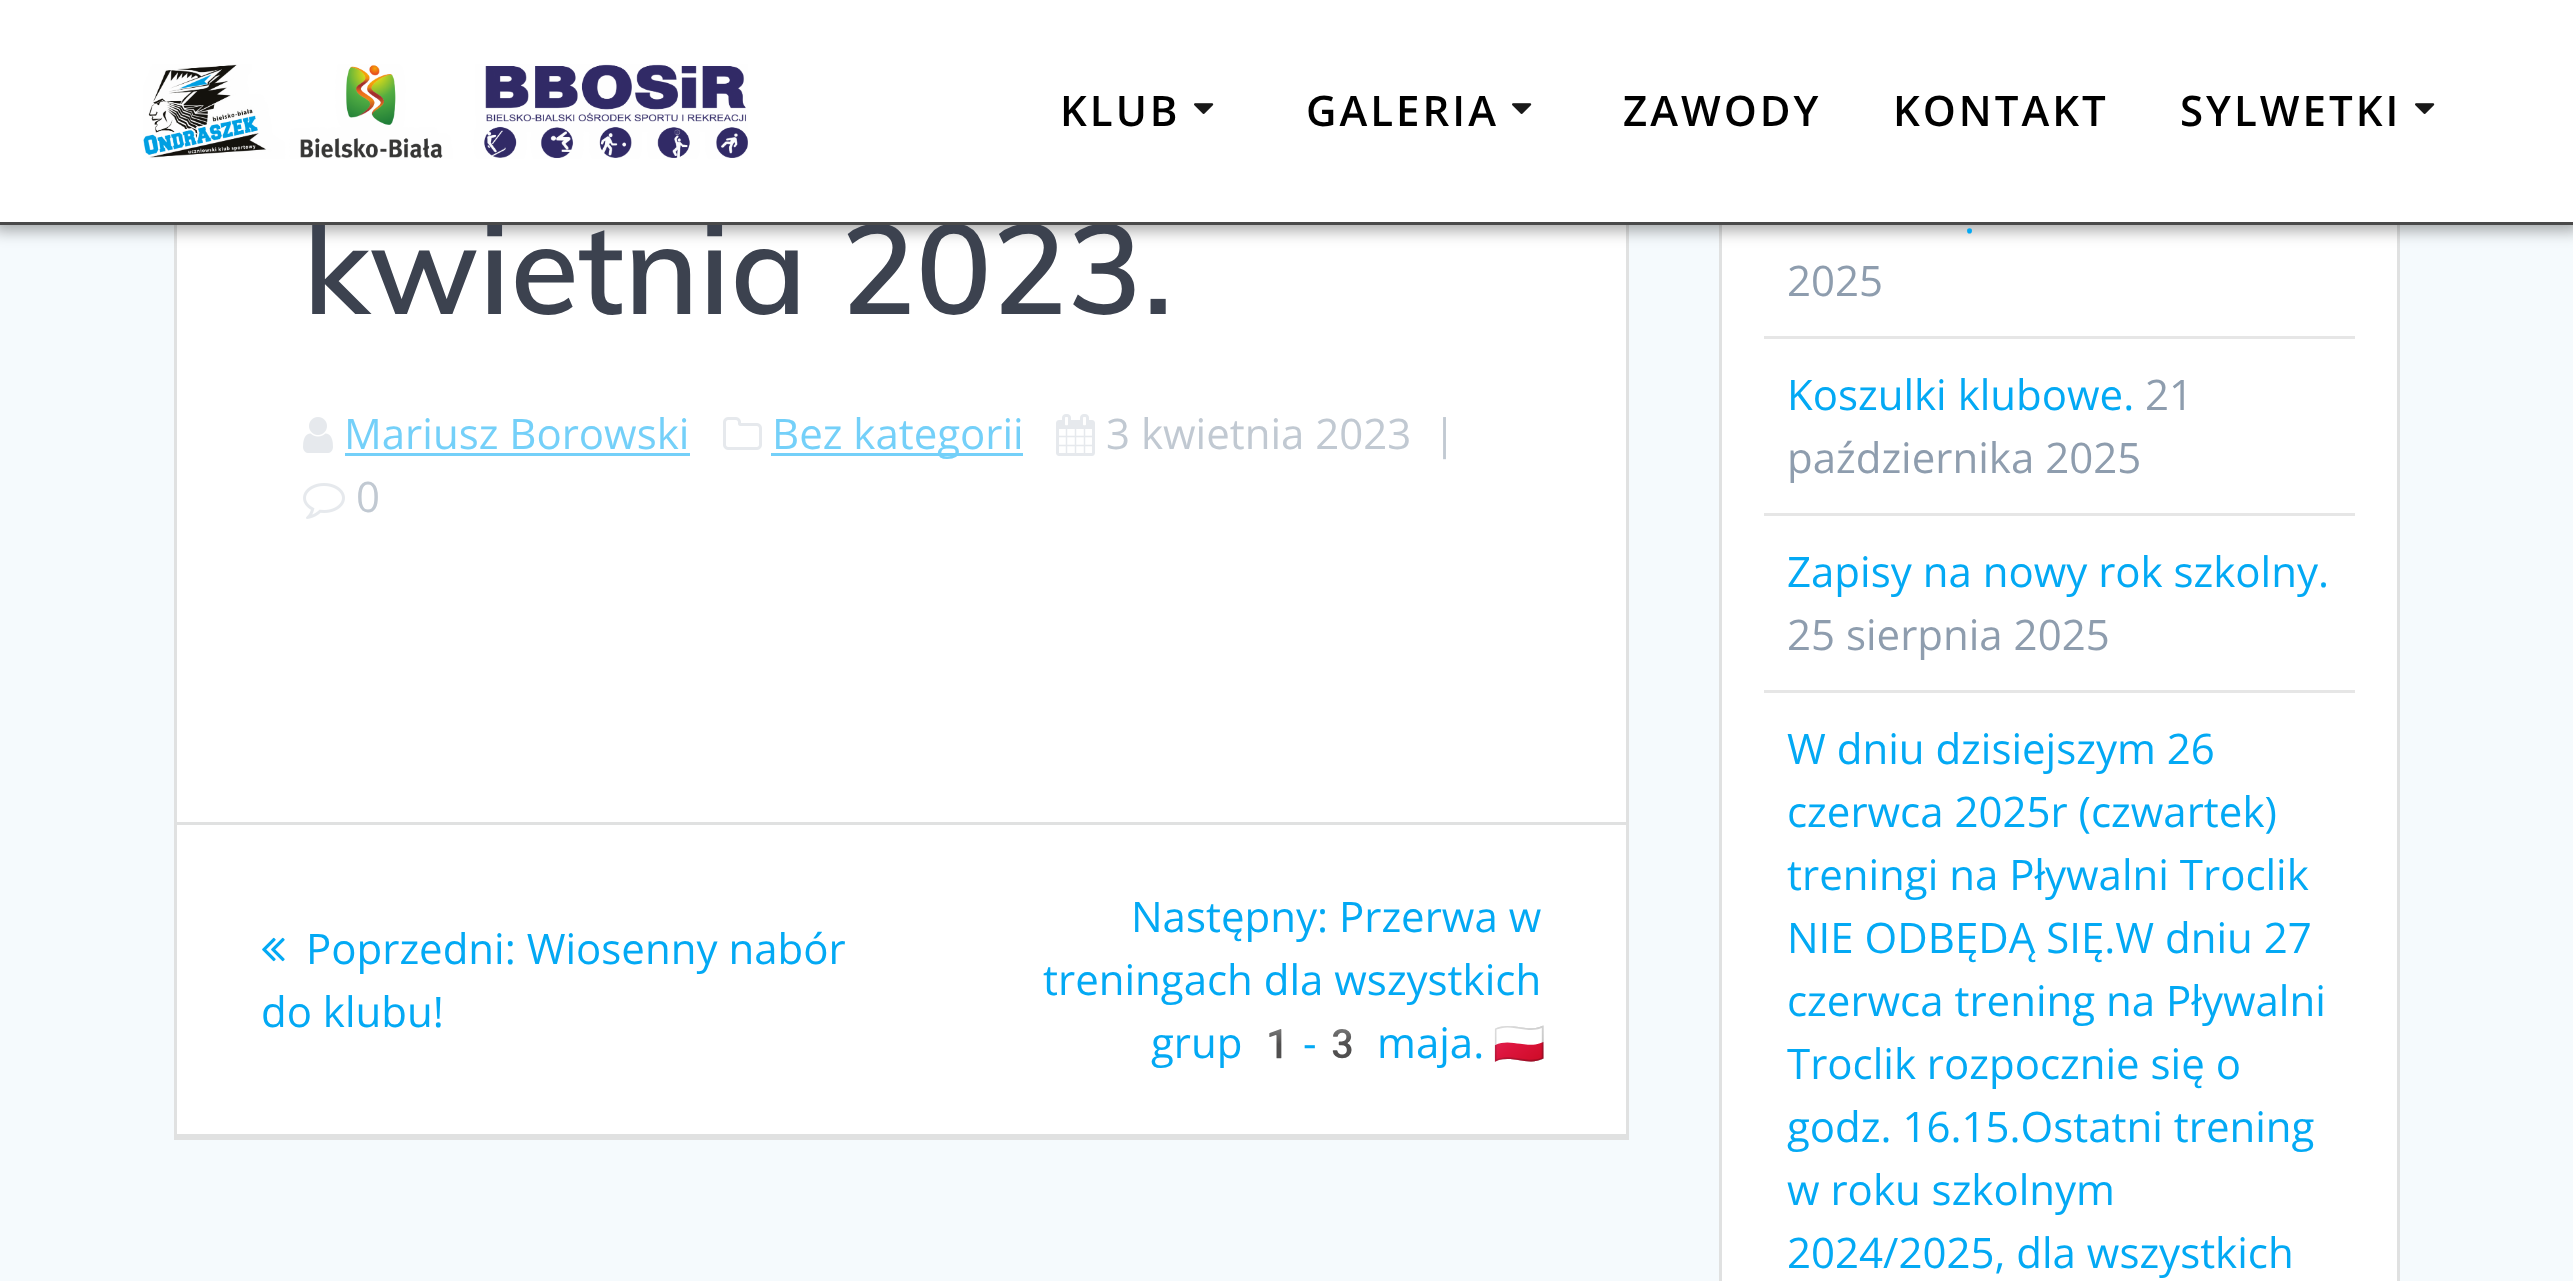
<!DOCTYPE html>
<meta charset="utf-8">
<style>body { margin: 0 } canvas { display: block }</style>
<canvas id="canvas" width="2573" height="1281"></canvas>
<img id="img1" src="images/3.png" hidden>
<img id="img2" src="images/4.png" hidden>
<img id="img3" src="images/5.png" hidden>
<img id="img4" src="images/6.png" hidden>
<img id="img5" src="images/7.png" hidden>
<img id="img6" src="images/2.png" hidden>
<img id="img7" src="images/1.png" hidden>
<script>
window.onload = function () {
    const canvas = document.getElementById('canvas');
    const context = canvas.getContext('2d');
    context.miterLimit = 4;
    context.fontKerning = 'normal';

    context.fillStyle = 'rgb(245, 250, 253)';
    context.fillRect(0, 0, 2573, 1281);
    context.fillStyle = 'rgb(255, 255, 255)';
    context.fillRect(177, 225, 1449, 909);
    context.strokeStyle = 'rgb(224, 225, 225)';
    context.lineWidth = 3;
    context.strokeRect(175.5, -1.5, 1452, 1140);
    context.fillRect(1722, 225, 675, 1056);
    context.strokeRect(1720.5, -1.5, 678, 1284);
    context.fillStyle = 'rgba(0, 0, 0, 0.33)';
    context.filter = 'blur(7.5px)';
    context.beginPath();
    context.rect(-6, -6, 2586, 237);
    context.fill();
    context.filter = 'none';
    context.drawImage(document.getElementById('img1'), 303, 417, 30, 36);
    context.fillStyle = 'rgb(116, 208, 249)';
    context.fillRect(345, 453, 345, 3);
    context.drawImage(document.getElementById('img2'), 723, 417, 39, 33);
    context.fillRect(771, 453, 252, 3);
    context.drawImage(document.getElementById('img3'), 1056, 414, 39, 42);
    context.drawImage(document.getElementById('img4'), 303, 483, 42, 36);
    context.fillStyle = 'rgb(224, 225, 225)';
    context.fillRect(177, 822, 1449, 3);
    context.fillRect(177, 1134, 1449, 3);
    context.drawImage(document.getElementById('img5'), 262, 937, 23, 25);
    context.fillStyle = 'rgb(230, 230, 230)';
    context.fillRect(1764, 336, 591, 3);
    context.fillRect(1764, 513, 591, 3);
    context.fillRect(1764, 690, 591, 3);
    context.font = '600 126px Muli';
    context.fillStyle = 'rgb(60, 66, 79)';
    context.fillText('kwietnia 2023.', 303, 314);
    context.fillStyle = 'rgb(255, 255, 255)';
    context.fillRect(0, 0, 2573, 222);
    context.drawImage(document.getElementById('img6'), 2415, 103, 20, 11);
    context.letterSpacing = '3px';
    context.font = '600 42px Open Sans';
    context.fillStyle = 'rgb(0, 0, 0)';
    context.fillText('SYLWETKI', 2180, 126);
    context.fillText('KONTAKT', 1893, 126);
    context.fillText('ZAWODY', 1623, 126);
    context.drawImage(document.getElementById('img6'), 1512, 103, 20, 11);
    context.fillText('GALERIA', 1306, 126);
    context.drawImage(document.getElementById('img6'), 1194, 103, 20, 11);
    context.fillText('KLUB', 1060, 126);
    context.drawImage(document.getElementById('img7'), 143, 64, 605, 95);
    context.fillStyle = 'rgb(73, 73, 73)';
    context.fillRect(0, 222, 2573, 3);
    context.letterSpacing = '0px';
    context.font = '42px Open Sans';
    context.fillStyle = 'rgb(116, 208, 249)';
    context.fillText('Mariusz Borowski', 344, 449);
    context.fillText('Bez kategorii', 772, 449);
    context.fillStyle = 'rgb(193, 201, 210)';
    context.fillText('3 kwietnia 2023', 1106, 449);
    context.fillText('|', 1433, 449);
    context.fillText('0', 356, 512);
    context.fillStyle = 'rgb(3, 169, 244)';
    context.fillText('Poprzedni: Wiosenny nabór', 306, 964);
    context.fillText('do klubu!', 261, 1027);
    context.fillText('Następny: Przerwa w', 1131, 932);
    context.fillText('treningach dla wszystkich', 1043, 995);
    context.fillText('grup', 1151, 1058);
    context.font = '42px Noto Color Emoji';
    context.fillText('1', 1251, 1058);
    context.font = '42px Open Sans';
    context.fillText('-', 1303, 1058);
    context.font = '42px Noto Color Emoji';
    context.fillText('3', 1316, 1058);
    context.font = '42px Open Sans';
    context.fillText('maja.', 1377, 1058);
    context.font = '42px Noto Color Emoji';
    context.fillText('🇵🇱', 1493, 1058);
    context.font = '42px Open Sans';
    context.fillText('.', 1964, 233);
    context.fillStyle = 'rgb(142, 157, 174)';
    context.fillText('2025', 1787, 296);
    context.fillStyle = 'rgb(3, 169, 244)';
    context.fillText('Koszulki klubowe.', 1787, 410);
    context.fillStyle = 'rgb(142, 157, 174)';
    context.fillText('21', 2145, 410);
    context.fillText('października 2025', 1787, 473);
    context.fillStyle = 'rgb(3, 169, 244)';
    context.fillText('Zapisy na nowy rok szkolny.', 1787, 587);
    context.fillStyle = 'rgb(142, 157, 174)';
    context.fillText('25 sierpnia 2025', 1787, 650);
    context.fillStyle = 'rgb(3, 169, 244)';
    context.fillText('W dniu dzisiejszym 26', 1787, 764);
    context.fillText('czerwca 2025r (czwartek)', 1787, 827);
    context.fillText('treningi na Pływalni Troclik', 1787, 890);
    context.fillText('NIE ODBĘDĄ SIĘ.W dniu 27', 1787, 953);
    context.fillText('czerwca trening na Pływalni', 1787, 1016);
    context.fillText('Troclik rozpocznie się o', 1787, 1079);
    context.fillText('godz. 16.15.Ostatni trening', 1787, 1142);
    context.fillText('w roku szkolnym', 1787, 1205);
    context.fillText('2024/2025, dla wszystkich', 1787, 1268);
};
</script>
